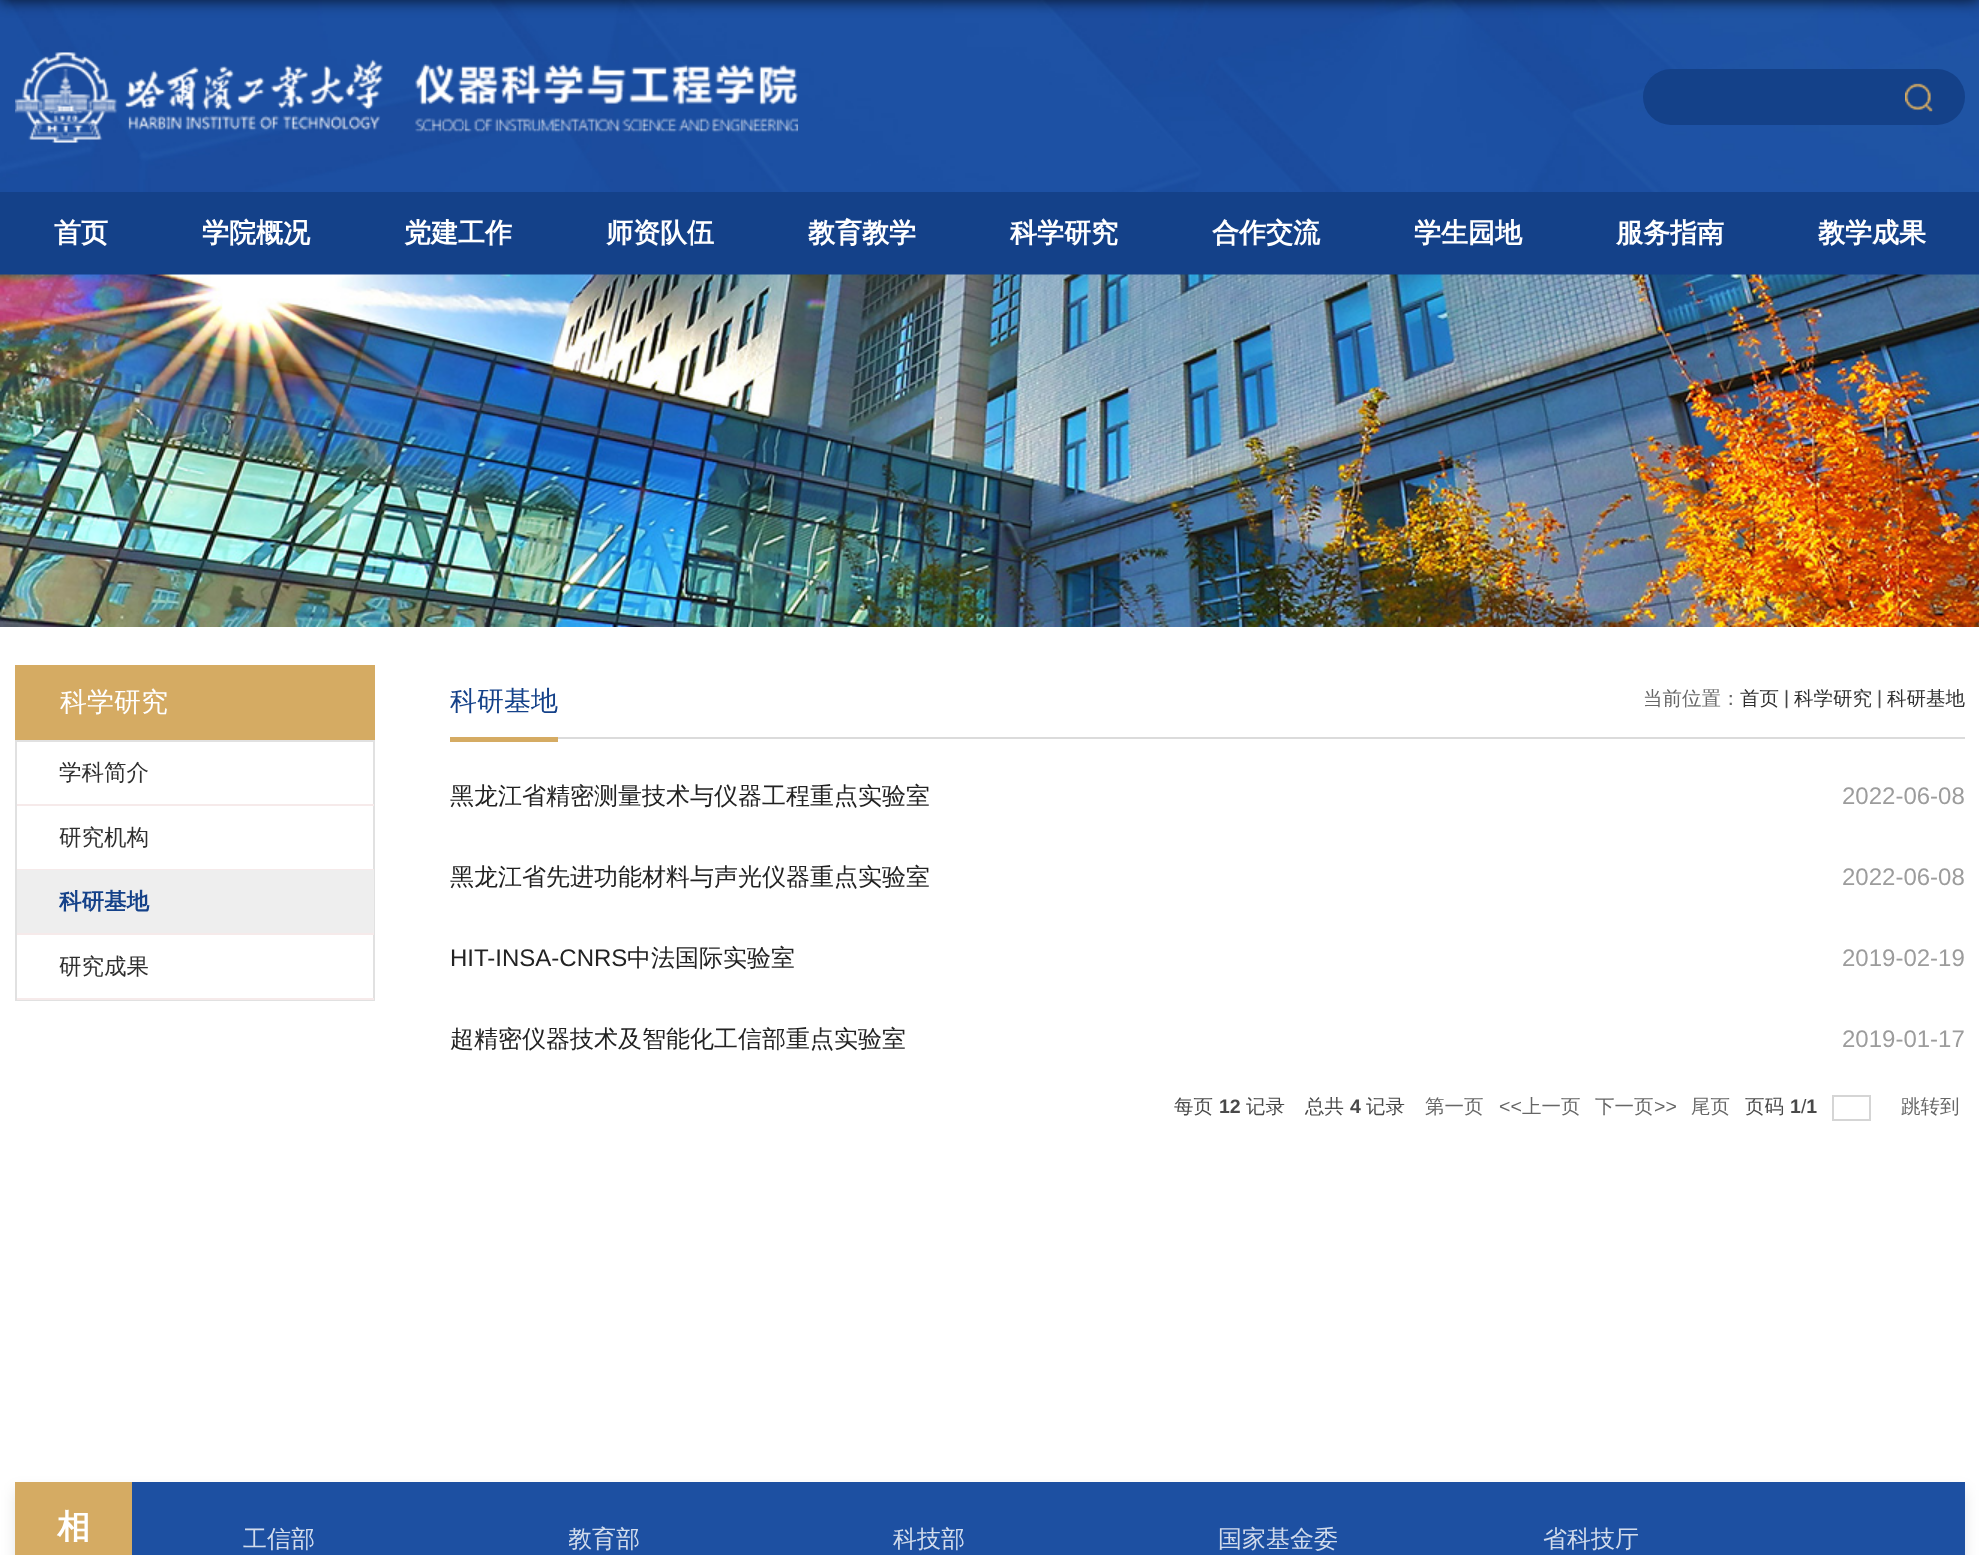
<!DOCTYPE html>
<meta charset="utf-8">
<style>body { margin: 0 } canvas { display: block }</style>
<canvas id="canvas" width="1979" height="1555"></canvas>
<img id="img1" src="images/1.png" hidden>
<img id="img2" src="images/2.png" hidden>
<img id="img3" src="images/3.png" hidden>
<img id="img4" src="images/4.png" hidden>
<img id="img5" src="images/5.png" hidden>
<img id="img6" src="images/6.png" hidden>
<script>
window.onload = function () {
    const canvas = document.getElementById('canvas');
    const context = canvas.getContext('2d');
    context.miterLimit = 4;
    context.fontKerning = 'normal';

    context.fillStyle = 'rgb(255, 255, 255)';
    context.fillRect(0, 0, 1979, 1555);
    context.drawImage(document.getElementById('img1'), 0, 0, 1979, 192);
    context.drawImage(document.getElementById('img2'), 15, 52, 783, 91);
    context.fillStyle = 'rgb(20, 65, 137)';
    context.beginPath();
    context.roundRect(1643, 69, 322, 56, 28);
    context.fill();
    context.drawImage(document.getElementById('img3'), 1905, 83, 28, 29);
    context.fillStyle = 'rgba(0, 0, 0, 0.8)';
    context.filter = 'blur(7.5px)';
    context.beginPath();
    context.rect(0, -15, 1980, 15);
    context.fill();
    context.filter = 'none';
    context.fillStyle = 'rgb(20, 65, 137)';
    context.fillRect(0, 192, 1979, 83);
    context.drawImage(document.getElementById('img4'), 0, 274, 1979, 353);
    context.fillStyle = 'rgb(213, 171, 99)';
    context.fillRect(15, 665, 360, 75);
    context.strokeStyle = 'rgb(225, 225, 225)';
    context.lineWidth = 2;
    context.strokeRect(16, 741, 358, 259);
    context.fillStyle = 'rgb(246, 234, 234)';
    context.fillRect(17, 804, 357, 2);
    context.fillRect(17, 869, 357, 1);
    context.fillStyle = 'rgb(238, 238, 238)';
    context.fillRect(17, 870, 357, 63);
    context.fillStyle = 'rgb(246, 234, 234)';
    context.fillRect(17, 933, 357, 2);
    context.fillRect(17, 998, 357, 2);
    context.fillStyle = 'rgb(219, 219, 219)';
    context.fillRect(558, 737, 1407, 2);
    context.fillStyle = 'rgb(213, 171, 99)';
    context.fillRect(450, 737, 108, 5);
    context.drawImage(document.getElementById('img5'), 1785, 689, 3, 20);
    context.drawImage(document.getElementById('img6'), 1878, 689, 3, 20);
    context.strokeStyle = 'rgb(213, 213, 213)';
    context.strokeRect(1833, 1096, 37, 24);
    context.fillStyle = 'rgba(0, 0, 0, 0.1)';
    context.filter = 'blur(7.5px)';
    context.beginPath();
    context.rect(15, 1490, 1950, 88);
    context.fill();
    context.filter = 'none';
    context.fillStyle = 'rgb(29, 80, 162)';
    context.fillRect(132, 1482, 1833, 73);
    context.fillStyle = 'rgb(213, 171, 99)';
    context.fillRect(15, 1482, 117, 73);
    context.font = 'bold 27px WenQuanYi Zen Hei';
    context.fillStyle = 'rgb(255, 255, 255)';
    context.fillText('首页', 54, 242);
    context.fillText('学院概况', 202, 242);
    context.fillText('党建工作', 404, 242);
    context.fillText('师资队伍', 606, 242);
    context.fillText('教育教学', 808, 242);
    context.fillText('科学研究', 1010, 242);
    context.fillText('合作交流', 1212, 242);
    context.fillText('学生园地', 1414, 242);
    context.fillText('服务指南', 1616, 242);
    context.fillText('教学成果', 1818, 242);
    context.font = '500 27px WenQuanYi Zen Hei';
    context.fillText('科学研究', 60, 711);
    context.font = '500 22.5px WenQuanYi Zen Hei';
    context.fillStyle = 'rgb(47, 47, 47)';
    context.fillText('学科简介', 59, 780);
    context.fillText('研究机构', 59, 845);
    context.font = 'bold 22.5px WenQuanYi Zen Hei';
    context.fillStyle = 'rgb(20, 65, 137)';
    context.fillText('科研基地', 59, 909);
    context.font = '500 22.5px WenQuanYi Zen Hei';
    context.fillStyle = 'rgb(47, 47, 47)';
    context.fillText('研究成果', 59, 974);
    context.font = '500 27px WenQuanYi Zen Hei';
    context.fillStyle = 'rgb(20, 65, 137)';
    context.fillText('科研基地', 450, 710);
    context.font = '500 19.5px WenQuanYi Zen Hei';
    context.fillStyle = 'rgb(102, 102, 102)';
    context.fillText('当前位置：', 1643, 705);
    context.fillStyle = 'rgb(47, 47, 47)';
    context.fillText('首页', 1740, 705);
    context.fillText('科学研究', 1794, 705);
    context.fillText('科研基地', 1887, 705);
    context.font = '500 24px WenQuanYi Zen Hei';
    context.fillStyle = 'rgb(34, 34, 34)';
    context.fillText('黑龙江省精密测量技术与仪器工程重点实验室', 450, 804);
    context.font = '24px Liberation Sans';
    context.fillStyle = 'rgb(156, 156, 156)';
    context.fillText('2022-06-08', 1842, 804);
    context.font = '500 24px WenQuanYi Zen Hei';
    context.fillStyle = 'rgb(34, 34, 34)';
    context.fillText('黑龙江省先进功能材料与声光仪器重点实验室', 450, 885);
    context.font = '24px Liberation Sans';
    context.fillStyle = 'rgb(156, 156, 156)';
    context.fillText('2022-06-08', 1842, 885);
    context.fillStyle = 'rgb(34, 34, 34)';
    context.fillText('HIT-INSA-CNRS', 450, 966);
    context.font = '500 24px WenQuanYi Zen Hei';
    context.fillText('中法国际实验室', 627, 966);
    context.font = '24px Liberation Sans';
    context.fillStyle = 'rgb(156, 156, 156)';
    context.fillText('2019-02-19', 1842, 966);
    context.font = '500 24px WenQuanYi Zen Hei';
    context.fillStyle = 'rgb(34, 34, 34)';
    context.fillText('超精密仪器技术及智能化工信部重点实验室', 450, 1047);
    context.font = '24px Liberation Sans';
    context.fillStyle = 'rgb(156, 156, 156)';
    context.fillText('2019-01-17', 1842, 1047);
    context.font = '500 19.5px WenQuanYi Zen Hei';
    context.fillStyle = 'rgb(73, 73, 73)';
    context.fillText('每页', 1174, 1113);
    context.font = 'bold 19.5px Liberation Sans';
    context.fillText('12', 1219, 1113);
    context.font = '500 19.5px WenQuanYi Zen Hei';
    context.fillText('记录', 1246, 1113);
    context.fillText('总共', 1305, 1113);
    context.font = 'bold 19.5px Liberation Sans';
    context.fillText('4', 1350, 1113);
    context.font = '500 19.5px WenQuanYi Zen Hei';
    context.fillText('记录', 1366, 1113);
    context.fillStyle = 'rgb(102, 102, 102)';
    context.fillText('第一页', 1425, 1113);
    context.font = '19.5px Liberation Sans';
    context.fillText('<<', 1499, 1113);
    context.font = '500 19.5px WenQuanYi Zen Hei';
    context.fillText('上一页', 1522, 1113);
    context.fillText('下一页', 1595, 1113);
    context.font = '19.5px Liberation Sans';
    context.fillText('>>', 1654, 1113);
    context.font = '500 19.5px WenQuanYi Zen Hei';
    context.fillText('尾页', 1691, 1113);
    context.fillStyle = 'rgb(73, 73, 73)';
    context.fillText('页码', 1745, 1113);
    context.font = 'bold 19.5px Liberation Sans';
    context.fillText('1 1', 1790, 1113);
    context.font = '19.5px Liberation Sans';
    context.fillText('/', 1801, 1113);
    context.font = '500 19.5px WenQuanYi Zen Hei';
    context.fillStyle = 'rgb(102, 102, 102)';
    context.fillText('跳转到', 1901, 1113);
    context.font = 'bold 33px WenQuanYi Zen Hei';
    context.fillStyle = 'rgb(255, 255, 255)';
    context.fillText('相', 57, 1538);
    context.font = '500 24px WenQuanYi Zen Hei';
    context.fillStyle = 'rgb(210, 220, 236)';
    context.fillText('工信部', 243, 1547);
    context.save();
    context.beginPath();
    context.rect(569, 1515, 292, 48);
    context.clip();
    context.fillText('教育部', 568, 1547);
    context.restore();
    context.fillText('科技部', 893, 1547);
    context.fillText('国家基金委', 1218, 1547);
    context.fillText('省科技厅', 1543, 1547);
};
</script>
